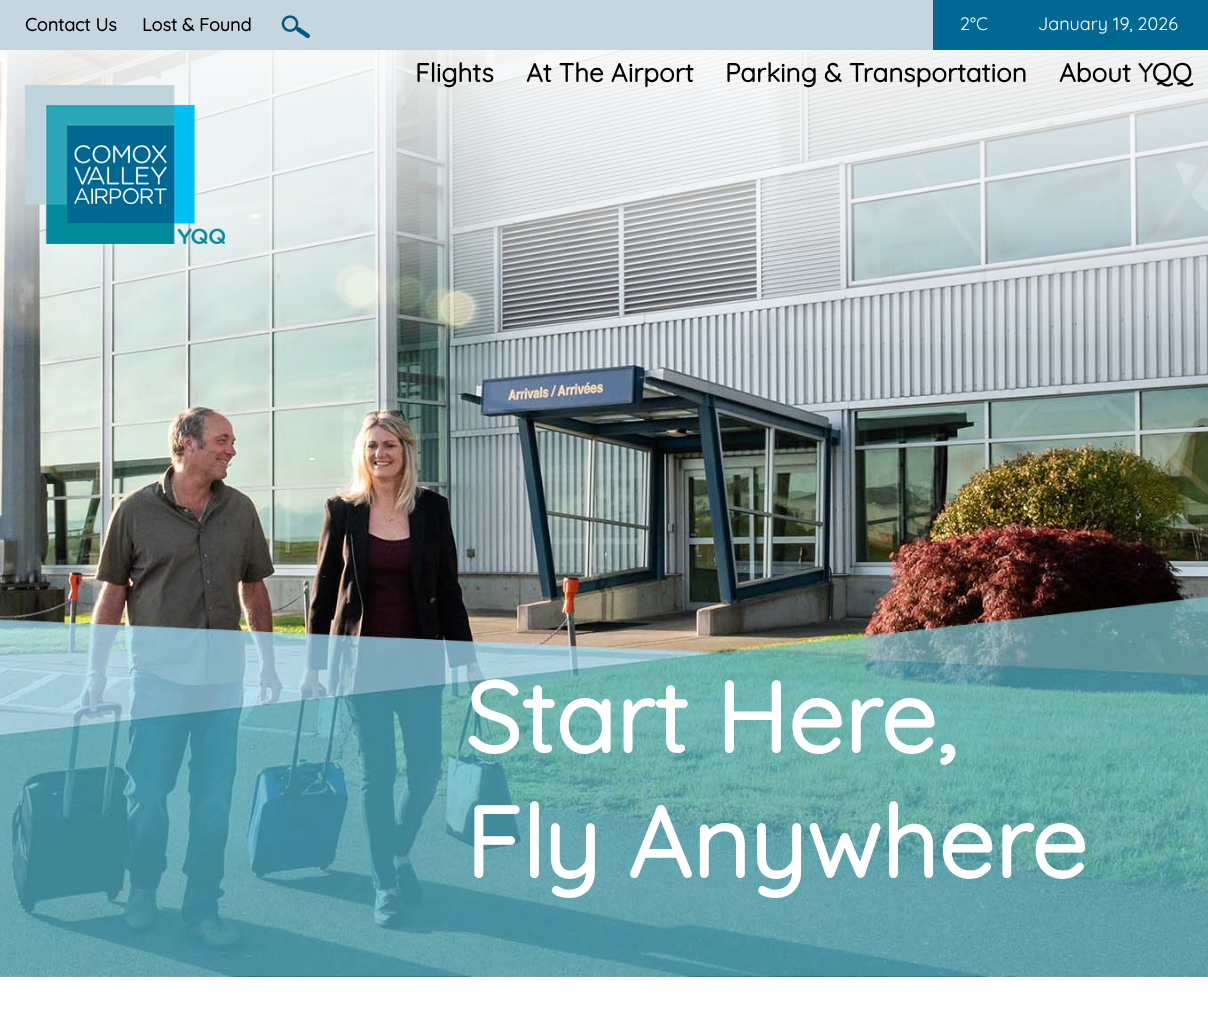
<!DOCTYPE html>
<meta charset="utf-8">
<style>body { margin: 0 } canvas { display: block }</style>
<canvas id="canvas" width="1208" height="1030"></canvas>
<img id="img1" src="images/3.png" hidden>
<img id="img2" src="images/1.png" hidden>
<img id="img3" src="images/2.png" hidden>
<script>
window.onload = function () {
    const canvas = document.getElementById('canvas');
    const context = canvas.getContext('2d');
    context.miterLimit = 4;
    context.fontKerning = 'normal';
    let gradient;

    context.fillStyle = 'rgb(255, 255, 255)';
    context.fillRect(0, 0, 1208, 1030);
    context.drawImage(document.getElementById('img1'), 0, 50, 1208, 927);
    gradient = context.createLinearGradient(604, 350, 604, 0);
    gradient.addColorStop(0, 'rgba(255, 255, 255, 0)');
    gradient.addColorStop(0.38, 'rgba(255, 255, 255, 0.6)');
    gradient.addColorStop(1, 'rgb(255, 255, 255)');
    context.fillStyle = gradient;
    context.fillRect(0, 50, 1208, 295);
    context.fillStyle = 'rgb(197, 214, 224)';
    context.fillRect(0, 0, 933, 50);
    context.drawImage(document.getElementById('img2'), 281, 15, 29, 24);
    context.fillStyle = 'rgb(0, 105, 147)';
    context.fillRect(933, 0, 275, 50);
    context.drawImage(document.getElementById('img3'), 25, 85, 200, 159);
    context.font = 'bold 18px Quicksand';
    context.fillStyle = 'rgb(0, 0, 0)';
    context.fillText('Contact Us', 25, 31);
    context.fillText('Lost & Found', 142, 31);
    context.font = '18px Quicksand';
    context.fillStyle = 'rgb(255, 255, 255)';
    context.fillText('2°C', 960, 30);
    context.fillText('January 19, 2026', 1038, 30);
    context.font = 'bold 26px Quicksand';
    context.fillStyle = 'rgb(0, 0, 0)';
    context.fillText('Flights', 415, 82);
    context.fillText('At The Airport', 526, 82);
    context.fillText('Parking & Transportation', 725, 82);
    context.fillText('About YQQ', 1059, 82);
    context.font = 'bold 100px Quicksand';
    context.fillStyle = 'rgb(255, 255, 255)';
    context.fillText('Start Here,', 465, 753);
    context.fillText('Fly Anywhere', 465, 878);
};
</script>
